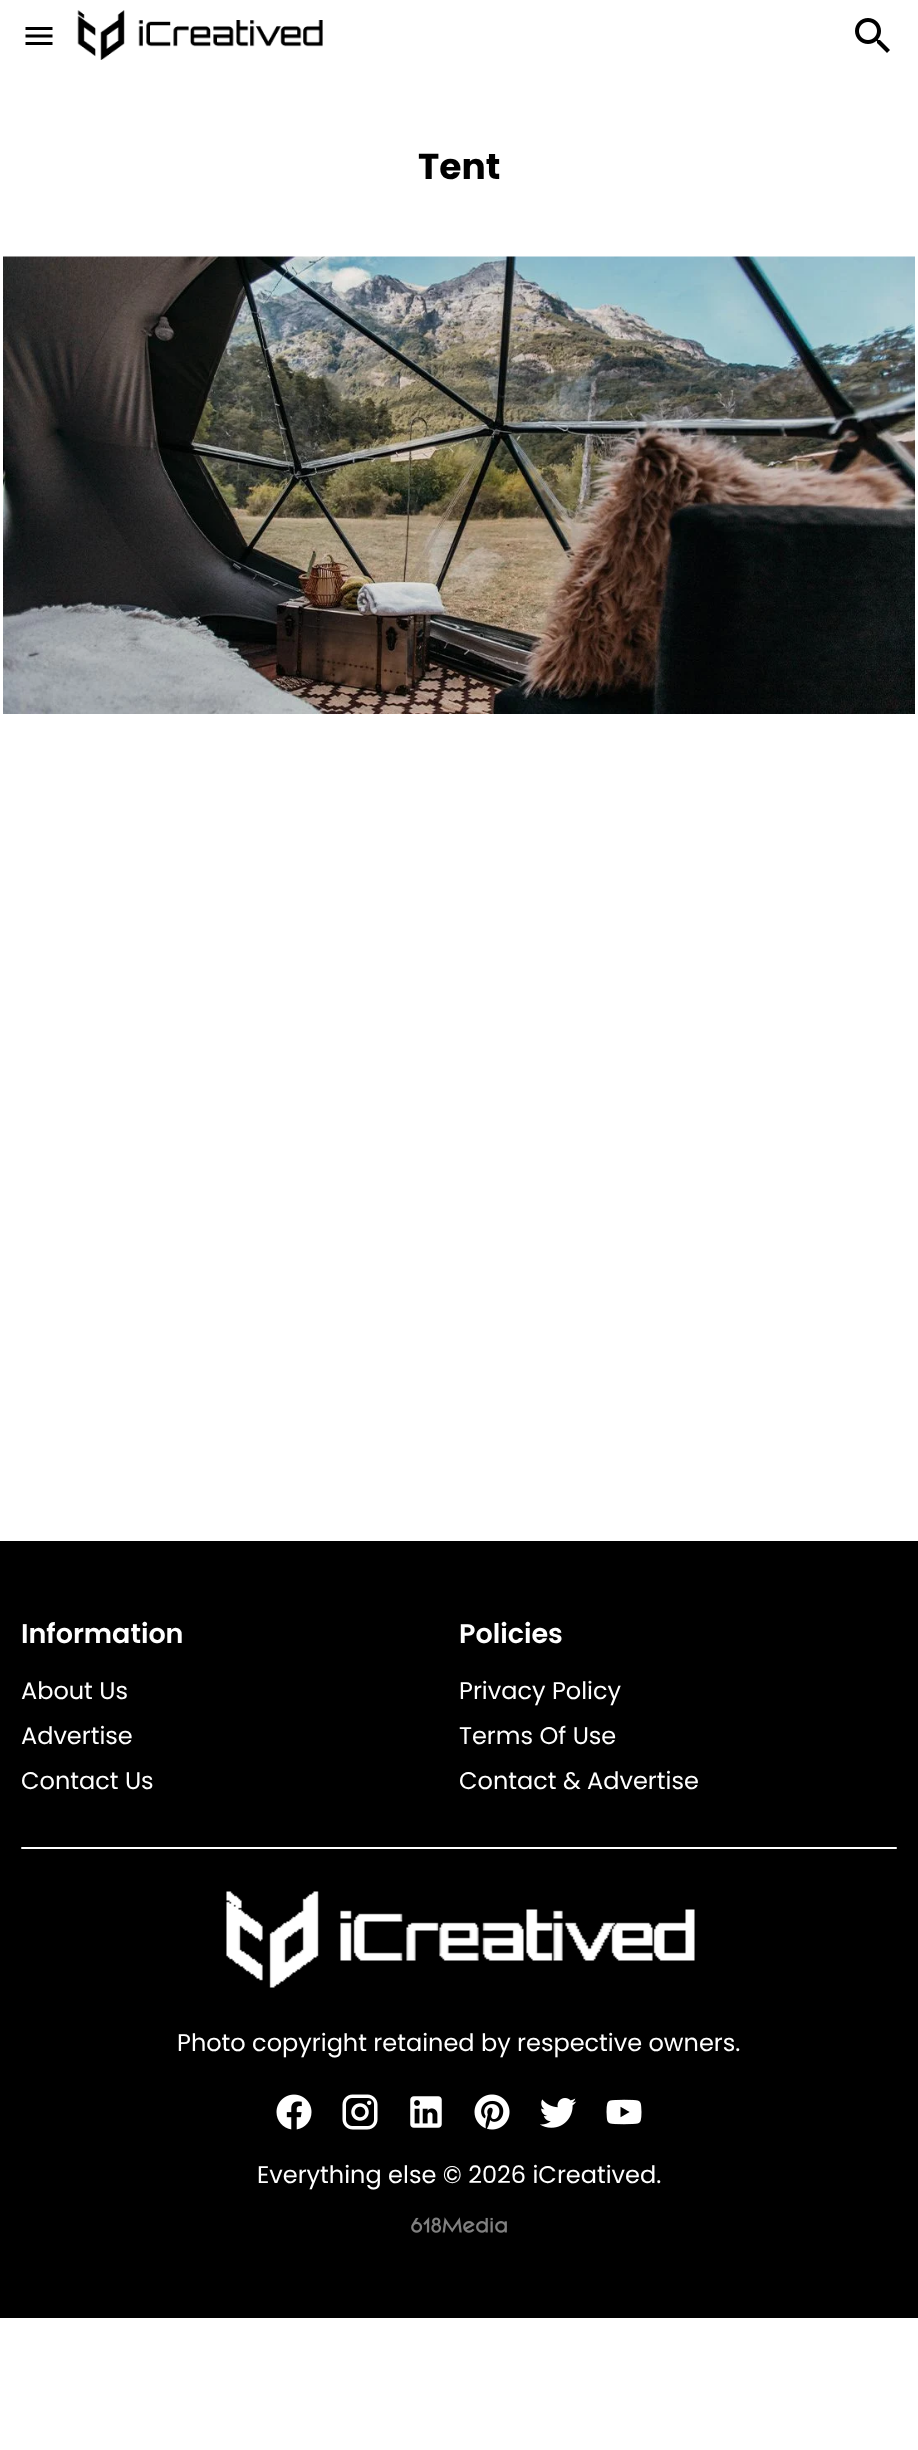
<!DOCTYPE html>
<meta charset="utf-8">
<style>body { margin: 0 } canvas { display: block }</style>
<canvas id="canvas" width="918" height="2450"></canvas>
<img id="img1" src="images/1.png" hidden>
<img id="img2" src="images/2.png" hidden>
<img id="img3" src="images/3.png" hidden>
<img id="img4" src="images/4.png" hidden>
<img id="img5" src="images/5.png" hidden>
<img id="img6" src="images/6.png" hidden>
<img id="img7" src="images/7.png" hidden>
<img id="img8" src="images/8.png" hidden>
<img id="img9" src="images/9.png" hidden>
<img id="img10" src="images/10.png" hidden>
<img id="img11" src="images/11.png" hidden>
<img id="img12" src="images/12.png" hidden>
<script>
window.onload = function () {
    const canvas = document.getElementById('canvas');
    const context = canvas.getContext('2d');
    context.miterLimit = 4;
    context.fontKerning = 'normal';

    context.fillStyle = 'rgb(255, 255, 255)';
    context.fillRect(0, 0, 918, 2450);
    context.drawImage(document.getElementById('img1'), 25, 27, 28, 18);
    context.drawImage(document.getElementById('img2'), 77, 10, 246, 50);
    context.drawImage(document.getElementById('img3'), 855, 18, 35, 35);
    context.drawImage(document.getElementById('img4'), 3, 256, 912, 458);
    context.fillStyle = 'rgb(0, 0, 0)';
    context.fillRect(0, 1541, 918, 777);
    context.fillStyle = 'rgb(255, 255, 255)';
    context.beginPath();
    context.roundRect(21, 1847, 876, 2, 1);
    context.fill();
    context.drawImage(document.getElementById('img5'), 226, 1891, 469, 97);
    context.drawImage(document.getElementById('img6'), 276, 2094, 36, 36);
    context.drawImage(document.getElementById('img7'), 342, 2094, 36, 36);
    context.drawImage(document.getElementById('img8'), 410, 2096, 32, 32);
    context.drawImage(document.getElementById('img9'), 474, 2094, 36, 36);
    context.drawImage(document.getElementById('img10'), 540, 2098, 37, 30);
    context.drawImage(document.getElementById('img11'), 606, 2099, 36, 26);
    context.drawImage(document.getElementById('img12'), 411, 2217, 96, 16);
    context.font = 'bold 36px Poppins';
    context.fillStyle = 'rgb(0, 0, 0)';
    context.fillText('Tent', 418, 179);
    context.font = '600 27px Poppins';
    context.fillStyle = 'rgb(255, 255, 255)';
    context.fillText('Information', 21, 1643);
    context.font = '24px Poppins';
    context.fillText('About Us', 21, 1699);
    context.fillText('Advertise', 21, 1744);
    context.fillText('Contact Us', 21, 1789);
    context.font = '600 27px Poppins';
    context.fillText('Policies', 459, 1643);
    context.font = '24px Poppins';
    context.fillText('Privacy Policy', 459, 1699);
    context.fillText('Terms Of Use', 459, 1744);
    context.fillText('Contact & Advertise', 459, 1789);
    context.fillText('Photo copyright retained by respective owners.', 177, 2051);
    context.fillText('Everything else © 2026 iCreatived.', 257, 2183);
};
</script>
